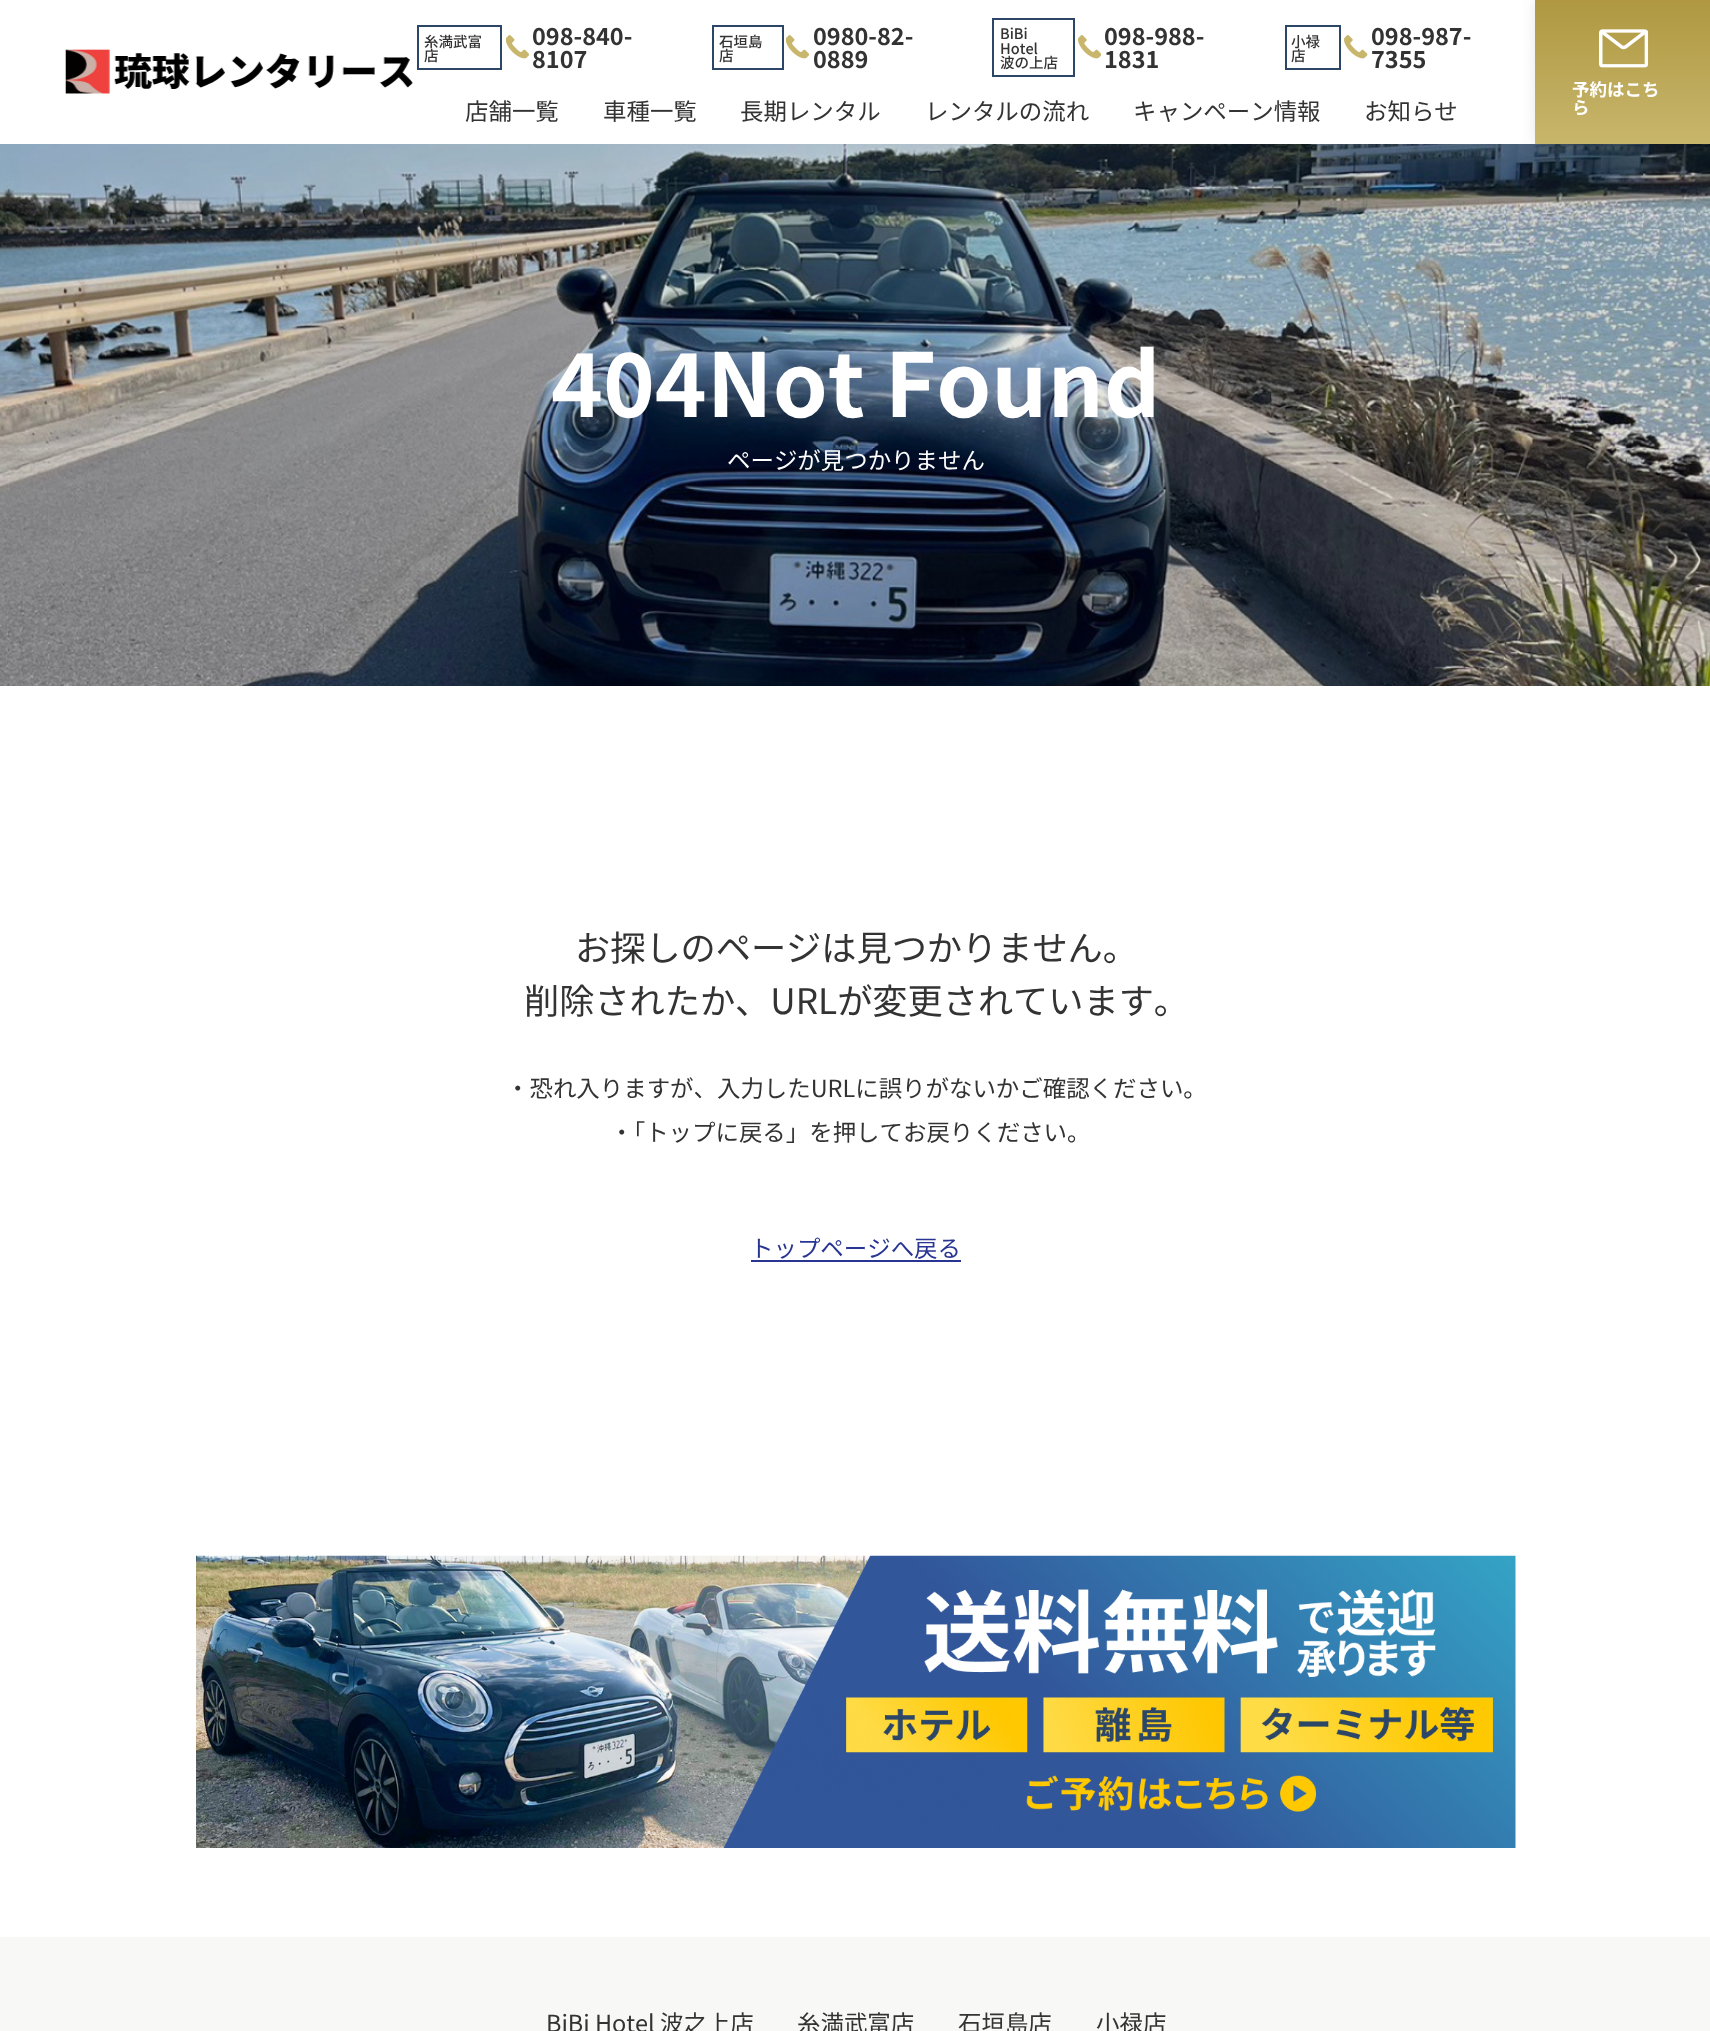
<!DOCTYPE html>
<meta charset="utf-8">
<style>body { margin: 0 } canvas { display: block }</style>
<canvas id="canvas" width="1710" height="2031"></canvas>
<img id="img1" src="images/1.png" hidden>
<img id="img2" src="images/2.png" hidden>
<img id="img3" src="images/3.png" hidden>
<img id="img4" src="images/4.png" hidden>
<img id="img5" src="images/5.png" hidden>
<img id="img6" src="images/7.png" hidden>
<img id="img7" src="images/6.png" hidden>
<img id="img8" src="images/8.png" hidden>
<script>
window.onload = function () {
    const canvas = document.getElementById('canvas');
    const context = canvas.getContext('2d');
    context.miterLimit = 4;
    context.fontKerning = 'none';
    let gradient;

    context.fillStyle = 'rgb(255, 255, 255)';
    context.fillRect(0, 0, 1710, 2031);
    context.drawImage(document.getElementById('img1'), 65, 49, 348, 45);
    context.strokeStyle = 'rgb(44, 70, 103)';
    context.lineWidth = 2;
    context.strokeRect(418, 26, 83, 43);
    context.drawImage(document.getElementById('img2'), 506, 35, 23, 24);
    context.strokeRect(713, 26, 70, 43);
    context.drawImage(document.getElementById('img3'), 786, 35, 24, 24);
    context.strokeRect(993, 19, 81, 57);
    context.drawImage(document.getElementById('img4'), 1078, 35, 23, 24);
    context.strokeRect(1286, 26, 54, 43);
    context.drawImage(document.getElementById('img5'), 1344, 35, 24, 24);
    context.drawImage(document.getElementById('img6'), 0, 144, 1710, 542);
    context.fillStyle = 'rgba(0, 0, 0, 0.1)';
    context.filter = 'blur(7px)';
    context.beginPath();
    context.rect(1535, 0, 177, 144);
    context.fill();
    context.filter = 'none';
    gradient = context.createLinearGradient(1623, 0, 1623, 144);
    gradient.addColorStop(0, 'rgb(175, 152, 65)');
    gradient.addColorStop(1, 'rgb(200, 182, 108)');
    context.fillStyle = gradient;
    context.fillRect(1535, 0, 175, 144);
    context.drawImage(document.getElementById('img7'), 1599, 29, 50, 39);
    context.fillStyle = 'rgb(40, 53, 147)';
    context.fillRect(751, 1260, 210, 2);
    context.drawImage(document.getElementById('img8'), 196, 1555, 1320, 293);
    context.fillStyle = 'rgb(248, 248, 246)';
    context.fillRect(0, 1937, 1710, 94);
    context.font = '500 14.5px Noto Sans JP';
    context.fillStyle = 'rgb(51, 51, 51)';
    context.fillText('糸満武富', 424, 47);
    context.fillText('店', 424, 61);
    context.font = 'bold 23.45px Noto Sans JP';
    context.fillText('098-840-', 532, 45);
    context.fillText('8107', 532, 68);
    context.font = '500 14.5px Noto Sans JP';
    context.fillText('石垣島', 719, 47);
    context.fillText('店', 719, 61);
    context.font = 'bold 23.45px Noto Sans JP';
    context.fillText('0980-82-', 813, 45);
    context.fillText('0889', 813, 68);
    context.font = '500 14.5px Noto Sans JP';
    context.fillText('BiBi', 1000, 39);
    context.fillText('Hotel', 1000, 54);
    context.fillText('波の上店', 1000, 68);
    context.font = 'bold 23.45px Noto Sans JP';
    context.fillText('098-988-', 1104, 45);
    context.fillText('1831', 1104, 68);
    context.font = '500 14.5px Noto Sans JP';
    context.fillText('小禄', 1291, 47);
    context.fillText('店', 1291, 61);
    context.font = 'bold 23.45px Noto Sans JP';
    context.fillText('098-987-', 1371, 45);
    context.fillText('7355', 1371, 68);
    context.font = '23.45px Noto Sans JP';
    context.fillText('店舗一覧', 465, 120);
    context.fillText('車種一覧', 603, 120);
    context.fillText('長期レンタル', 740, 120);
    context.fillText('レンタルの流れ', 925, 120);
    context.fillText('キャンペーン情報', 1133, 120);
    context.fillText('お知らせ', 1364, 120);
    context.font = 'bold 17.5px Noto Sans JP';
    context.fillStyle = 'rgb(255, 255, 255)';
    context.fillText('予約はこち', 1572, 96);
    context.fillText('ら', 1572, 114);
    context.font = 'bold 88px Noto Sans JP';
    context.fillText('404Not Found', 551, 417);
    context.font = '23.45px Noto Sans JP';
    context.fillText('ページが見つかりません', 727, 469);
    context.font = '35.2px Noto Sans JP';
    context.fillStyle = 'rgb(51, 51, 51)';
    context.fillText('お探しのページは見つかりません。', 575, 961);
    context.fillText('削除されたか、URLが変更されています。', 524, 1014);
    context.font = '23.45px Noto Sans JP';
    context.fillText('・恐れ入りますが、入力したURLに誤りがないかご確認ください。', 506, 1097);
    context.fillText('・「トップに戻る」を押してお戻りください。', 610, 1141);
    context.fillStyle = 'rgb(40, 53, 147)';
    context.fillText('トップページへ戻る', 750, 1257);
    context.fillStyle = 'rgb(51, 51, 51)';
    context.fillText('BiBi Hotel 波之上店', 546, 2032);
    context.fillText('糸満武富店', 797, 2032);
    context.fillText('石垣島店', 958, 2032);
    context.fillText('小禄店', 1096, 2032);
};
</script>
